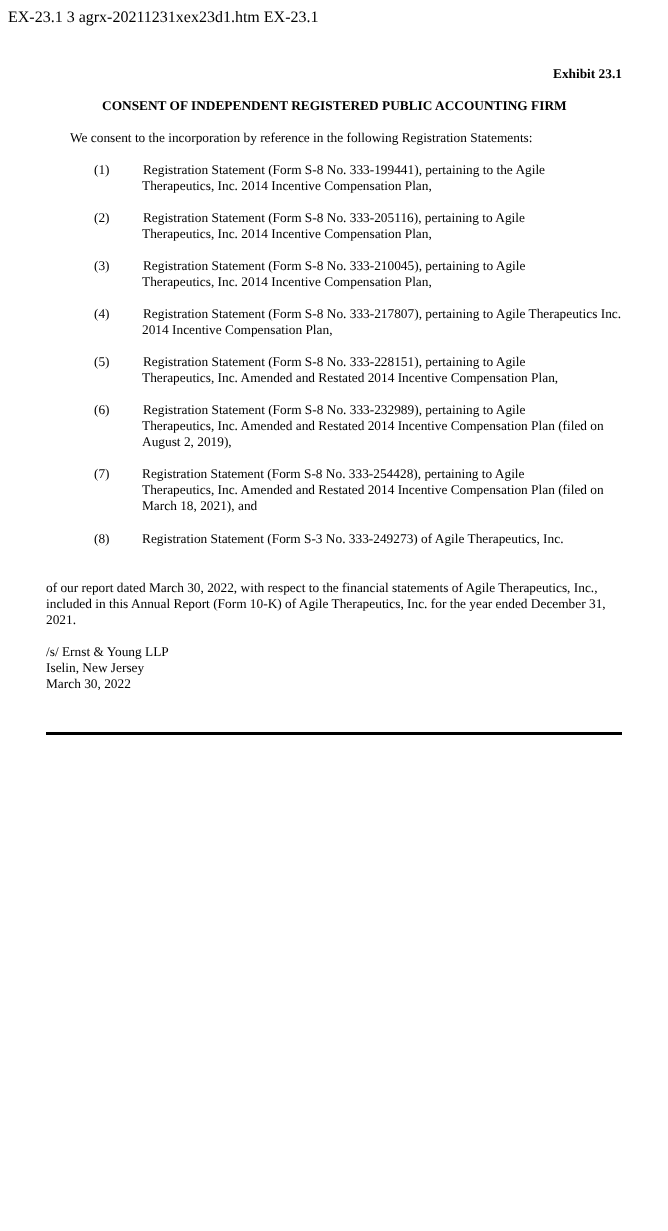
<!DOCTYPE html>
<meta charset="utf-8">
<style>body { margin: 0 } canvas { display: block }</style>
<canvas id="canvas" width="668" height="1231"></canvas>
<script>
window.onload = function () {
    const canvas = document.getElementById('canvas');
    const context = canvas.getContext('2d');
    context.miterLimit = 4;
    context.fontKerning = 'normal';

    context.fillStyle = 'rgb(255, 255, 255)';
    context.fillRect(0, 0, 668, 1231);
    context.fillStyle = 'rgb(0, 0, 0)';
    context.fillRect(46, 732, 576, 3);
    context.font = '16px Liberation Serif';
    context.fillText('EX-23.1 3 agrx-20211231xex23d1.htm EX-23.1', 8, 22);
    context.font = 'bold 13.35px Liberation Serif';
    context.fillText('Exhibit 23.1', 553, 78);
    context.fillText('CONSENT OF INDEPENDENT REGISTERED PUBLIC ACCOUNTING FIRM', 102, 110);
    context.font = '13.35px Liberation Serif';
    context.fillText('We consent to the incorporation by reference in the following Registration Statements:', 70, 142);
    context.fillText('(1)          Registration Statement (Form S-8 No. 333-199441), pertaining to the Agile', 94, 174);
    context.fillText('Therapeutics, Inc. 2014 Incentive Compensation Plan,', 142, 190);
    context.fillText('(2)          Registration Statement (Form S-8 No. 333-205116), pertaining to Agile', 94, 222);
    context.fillText('Therapeutics, Inc. 2014 Incentive Compensation Plan,', 142, 238);
    context.fillText('(3)          Registration Statement (Form S-8 No. 333-210045), pertaining to Agile', 94, 270);
    context.fillText('Therapeutics, Inc. 2014 Incentive Compensation Plan,', 142, 286);
    context.fillText('(4)          Registration Statement (Form S-8 No. 333-217807), pertaining to Agile Therapeutics Inc.', 94, 318);
    context.fillText('2014 Incentive Compensation Plan,', 142, 334);
    context.fillText('(5)          Registration Statement (Form S-8 No. 333-228151), pertaining to Agile', 94, 366);
    context.fillText('Therapeutics, Inc. Amended and Restated 2014 Incentive Compensation Plan,', 142, 382);
    context.fillText('(6)          Registration Statement (Form S-8 No. 333-232989), pertaining to Agile', 94, 414);
    context.fillText('Therapeutics, Inc. Amended and Restated 2014 Incentive Compensation Plan (filed on', 142, 430);
    context.fillText('August 2, 2019),', 142, 446);
    context.fillText('(7)', 94, 478);
    context.fillText('Registration Statement (Form S-8 No. 333-254428), pertaining to Agile', 142, 478);
    context.fillText('Therapeutics, Inc. Amended and Restated 2014 Incentive Compensation Plan (filed on', 142, 494);
    context.fillText('March 18, 2021), and', 142, 510);
    context.fillText('(8)', 94, 543);
    context.fillText('Registration Statement (Form S-3 No. 333-249273) of Agile Therapeutics, Inc.', 142, 543);
    context.fillText('of our report dated March 30, 2022, with respect to the financial statements of Agile Therapeutics, Inc.,', 46, 592);
    context.fillText('included in this Annual Report (Form 10-K) of Agile Therapeutics, Inc. for the year ended December 31,', 46, 608);
    context.fillText('2021.', 46, 624);
    context.fillText('/s/ Ernst & Young LLP', 46, 656);
    context.fillText('Iselin, New Jersey', 46, 672);
    context.fillText('March 30, 2022', 46, 688);
};
</script>
